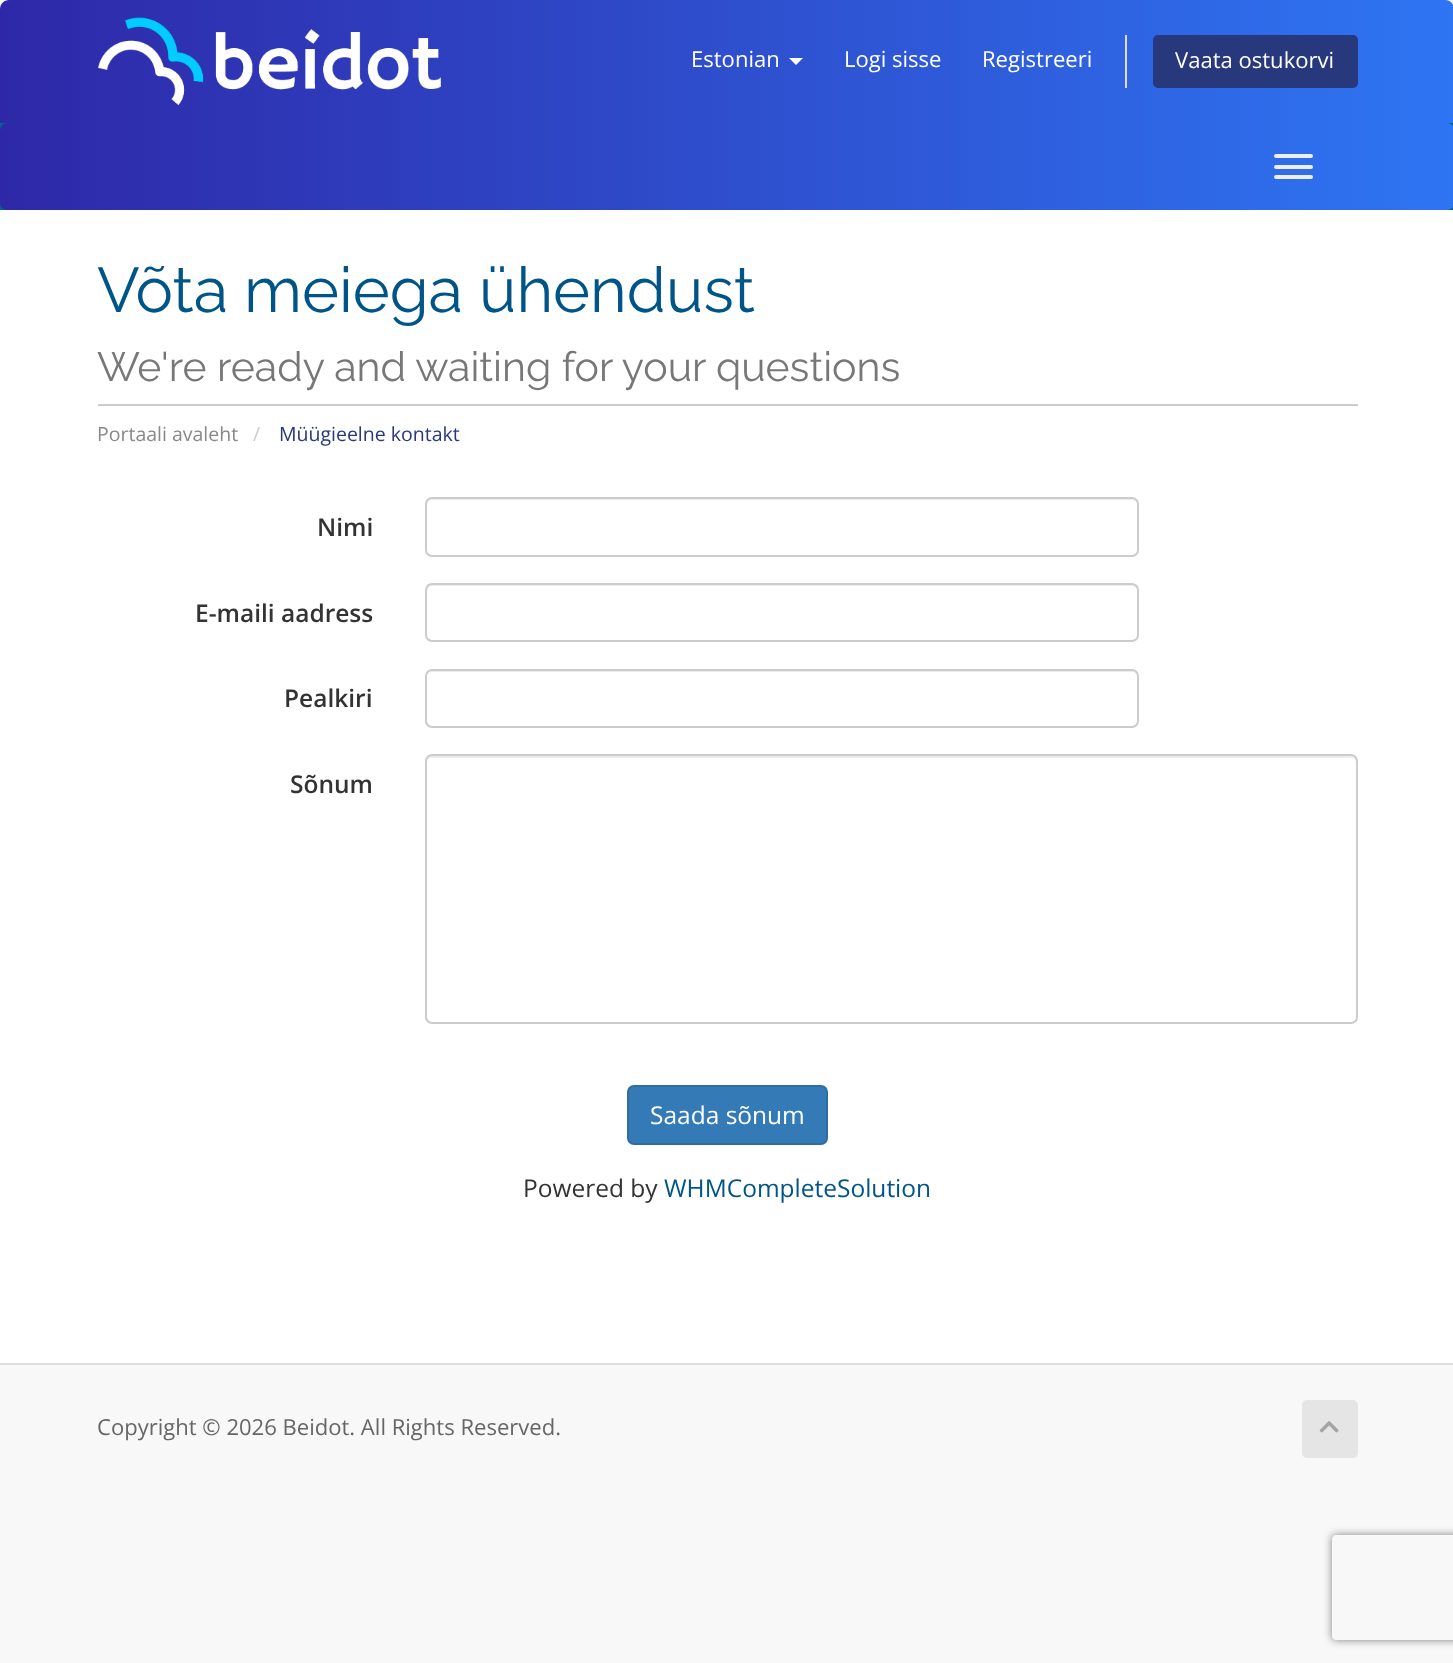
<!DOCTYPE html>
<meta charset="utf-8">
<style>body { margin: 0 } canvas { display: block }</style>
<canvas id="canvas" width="1453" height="1663"></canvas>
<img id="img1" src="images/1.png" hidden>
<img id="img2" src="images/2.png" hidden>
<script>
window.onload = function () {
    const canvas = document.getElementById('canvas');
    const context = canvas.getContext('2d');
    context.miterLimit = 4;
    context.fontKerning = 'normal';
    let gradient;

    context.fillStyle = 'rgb(248, 248, 248)';
    context.fillRect(0, 0, 1453, 1663);
    gradient = context.createLinearGradient(0, 61, 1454, 61);
    gradient.addColorStop(0, 'rgb(46, 40, 168)');
    gradient.addColorStop(1, 'rgb(46, 117, 243)');
    context.fillStyle = gradient;
    context.beginPath();
    context.moveTo(9, 0);
    context.lineTo(1445, 0);
    context.bezierCurveTo(1450, 0, 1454, 4, 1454, 9);
    context.lineTo(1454, 123);
    context.lineTo(0, 123);
    context.lineTo(0, 9);
    context.bezierCurveTo(0, 4, 4, 0, 9, 0);
    context.closePath();
    context.fill();
    context.drawImage(document.getElementById('img1'), 98, 17, 343, 88);
    context.fillStyle = 'rgb(255, 255, 255)';
    context.beginPath();
    context.moveTo(789, 58);
    context.lineTo(803, 58);
    context.lineTo(796, 65);
    context.closePath();
    context.fill();
    context.fillStyle = 'rgb(221, 221, 221)';
    context.fillRect(1125, 35, 2, 53);
    context.fillStyle = 'rgb(40, 56, 124)';
    context.beginPath();
    context.roundRect(1153, 35, 205, 53, 5);
    context.fill();
    context.fillStyle = 'rgb(0, 102, 135)';
    context.fillRect(0, 123, 1453, 87);
    gradient = context.createLinearGradient(0, 166, 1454, 166);
    gradient.addColorStop(0, 'rgb(46, 40, 168)');
    gradient.addColorStop(1, 'rgb(46, 117, 243)');
    context.fillStyle = gradient;
    context.beginPath();
    context.roundRect(0, 123, 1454, 87, 7);
    context.fill();
    context.fillStyle = 'rgb(238, 238, 238)';
    context.beginPath();
    context.roundRect(1274, 154, 39, 4, 2);
    context.fill();
    context.beginPath();
    context.roundRect(1274, 165, 39, 4, 2);
    context.fill();
    context.beginPath();
    context.roundRect(1274, 175, 39, 4, 2);
    context.fill();
    context.fillStyle = 'rgb(255, 255, 255)';
    context.fillRect(0, 210, 1453, 1153);
    context.fillStyle = 'rgb(204, 204, 204)';
    context.fillRect(98, 404, 1260, 2);
    context.fillStyle = 'rgb(236, 236, 236)';
    context.beginPath();
    context.moveTo(432, 500);
    context.lineTo(1132, 500);
    context.bezierCurveTo(1135, 500, 1138, 503, 1138, 506);
    context.lineTo(1138, 504);
    context.bezierCurveTo(1138, 501, 1136, 499, 1133, 499);
    context.lineTo(432, 499);
    context.bezierCurveTo(429, 499, 427, 501, 427, 504);
    context.lineTo(427, 506);
    context.bezierCurveTo(427, 503, 429, 500, 432, 500);
    context.closePath();
    context.fill();
    context.beginPath();
    context.roundRect(426, 498, 712, 58, 6);
    context.strokeStyle = 'rgb(204, 204, 204)';
    context.lineWidth = 2;
    context.stroke();
    context.beginPath();
    context.moveTo(432, 586);
    context.lineTo(1132, 586);
    context.bezierCurveTo(1135, 586, 1138, 589, 1138, 592);
    context.lineTo(1138, 590);
    context.bezierCurveTo(1138, 587, 1136, 585, 1133, 585);
    context.lineTo(432, 585);
    context.bezierCurveTo(429, 585, 427, 587, 427, 590);
    context.lineTo(427, 592);
    context.bezierCurveTo(427, 589, 429, 586, 432, 586);
    context.closePath();
    context.fill();
    context.beginPath();
    context.roundRect(426, 584, 712, 57, 6);
    context.stroke();
    context.beginPath();
    context.moveTo(432, 672);
    context.lineTo(1132, 672);
    context.bezierCurveTo(1135, 672, 1138, 674, 1138, 677);
    context.lineTo(1138, 675);
    context.bezierCurveTo(1138, 672, 1136, 670, 1133, 670);
    context.lineTo(432, 670);
    context.bezierCurveTo(429, 670, 427, 672, 427, 675);
    context.lineTo(427, 677);
    context.bezierCurveTo(427, 674, 429, 672, 432, 672);
    context.closePath();
    context.fill();
    context.beginPath();
    context.roundRect(426, 670, 712, 57, 6);
    context.stroke();
    context.beginPath();
    context.moveTo(432, 758);
    context.lineTo(1351, 758);
    context.bezierCurveTo(1354, 758, 1356, 760, 1356, 763);
    context.lineTo(1356, 761);
    context.bezierCurveTo(1356, 758, 1354, 756, 1351, 756);
    context.lineTo(432, 756);
    context.bezierCurveTo(429, 756, 427, 758, 427, 761);
    context.lineTo(427, 763);
    context.bezierCurveTo(427, 760, 429, 758, 432, 758);
    context.closePath();
    context.fill();
    context.beginPath();
    context.roundRect(426, 755, 931, 268, 6);
    context.stroke();
    context.fillStyle = 'rgb(51, 122, 183)';
    context.beginPath();
    context.roundRect(628, 1086, 199, 58, 6);
    context.fill();
    context.strokeStyle = 'rgb(46, 109, 164)';
    context.stroke();
    context.save();
    context.beginPath();
    context.moveTo(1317, 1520);
    context.lineTo(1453, 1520);
    context.lineTo(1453, 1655);
    context.lineTo(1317, 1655);
    context.closePath();
    context.moveTo(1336, 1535);
    context.lineTo(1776, 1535);
    context.bezierCurveTo(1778, 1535, 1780, 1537, 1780, 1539);
    context.lineTo(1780, 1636);
    context.bezierCurveTo(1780, 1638, 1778, 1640, 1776, 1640);
    context.lineTo(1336, 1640);
    context.bezierCurveTo(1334, 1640, 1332, 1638, 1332, 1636);
    context.lineTo(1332, 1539);
    context.bezierCurveTo(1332, 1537, 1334, 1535, 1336, 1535);
    context.closePath();
    context.clip('evenodd');
    context.fillStyle = 'rgb(128, 128, 128)';
    context.filter = 'blur(4.5px)';
    context.beginPath();
    context.roundRect(1332, 1535, 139, 105, 4);
    context.fill();
    context.filter = 'none';
    context.restore();
    context.fillStyle = 'rgb(221, 221, 221)';
    context.fillRect(0, 1363, 1453, 2);
    context.fillStyle = 'rgb(229, 229, 229)';
    context.beginPath();
    context.roundRect(1302, 1400, 56, 58, 5);
    context.fill();
    context.drawImage(document.getElementById('img2'), 1319, 1421, 20, 12);
    context.font = '22.05px Open Sans';
    context.fillStyle = 'rgb(255, 255, 255)';
    context.fillText('Estonian', 691, 67);
    context.fillText('Logi sisse', 844, 67);
    context.fillText('Registreeri', 982, 67);
    context.fillText('Vaata ostukorvi', 1175, 68);
    context.font = '63px Raleway';
    context.fillStyle = 'rgb(0, 85, 136)';
    context.fillText('Võta meiega ühendust', 97, 312);
    context.font = '41px Raleway';
    context.fillStyle = 'rgb(119, 119, 119)';
    context.fillText('We\'re ready and waiting for your questions', 97, 381);
    context.font = '19.5px Open Sans';
    context.fillStyle = 'rgb(136, 136, 136)';
    context.fillText('Portaali avaleht', 97, 441);
    context.fillStyle = 'rgb(204, 204, 204)';
    context.fillText('/', 253, 441);
    context.fillStyle = 'rgb(40, 56, 124)';
    context.fillText('Müügieelne kontakt', 279, 441);
    context.font = '600 24.5px Open Sans';
    context.fillStyle = 'rgb(51, 51, 51)';
    context.fillText('Nimi', 317, 536);
    context.fillText('E-maili aadress', 195, 622);
    context.fillText('Pealkiri', 284, 707);
    context.fillText('Sõnum', 290, 793);
    context.font = '24.5px Open Sans';
    context.fillStyle = 'rgb(255, 255, 255)';
    context.fillText('Saada sõnum', 650, 1124);
    context.fillStyle = 'rgb(51, 51, 51)';
    context.fillText('Powered by', 523, 1197);
    context.fillStyle = 'rgb(0, 85, 136)';
    context.fillText('WHMCompleteSolution', 664, 1197);
    context.font = '22.05px Open Sans';
    context.fillStyle = 'rgb(102, 102, 102)';
    context.fillText('Copyright © 2026 Beidot. All Rights Reserved.', 97, 1435);
};
</script>
